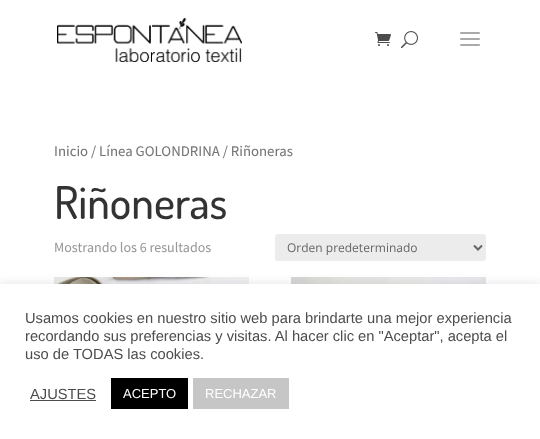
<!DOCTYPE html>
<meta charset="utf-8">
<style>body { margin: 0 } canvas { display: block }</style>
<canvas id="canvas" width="540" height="439"></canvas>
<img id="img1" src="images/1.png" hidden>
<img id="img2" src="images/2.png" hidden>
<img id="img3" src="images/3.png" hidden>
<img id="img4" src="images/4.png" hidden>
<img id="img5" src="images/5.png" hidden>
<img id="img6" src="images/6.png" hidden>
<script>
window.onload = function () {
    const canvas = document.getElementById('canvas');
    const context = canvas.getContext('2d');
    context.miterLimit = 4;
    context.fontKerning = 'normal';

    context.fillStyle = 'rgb(255, 255, 255)';
    context.fillRect(0, 0, 540, 439);
    context.drawImage(document.getElementById('img1'), 57, 18, 185, 44);
    context.drawImage(document.getElementById('img2'), 375, 32, 16, 14);
    context.drawImage(document.getElementById('img3'), 401, 31, 17, 18);
    context.drawImage(document.getElementById('img4'), 460, 32, 20, 14);
    context.fillStyle = 'rgb(236, 236, 236)';
    context.beginPath();
    context.roundRect(275, 234, 211, 27, 3);
    context.fill();
    context.beginPath();
    context.moveTo(474, 245.5);
    context.lineTo(478, 249.5);
    context.lineTo(482, 245.5);
    context.strokeStyle = 'rgb(102, 102, 102)';
    context.lineWidth = 2;
    context.stroke();
    context.drawImage(document.getElementById('img5'), 54, 277, 195, 7);
    context.drawImage(document.getElementById('img6'), 291, 277, 195, 7);
    context.fillStyle = 'rgba(172, 171, 171, 0.3)';
    context.filter = 'blur(5px)';
    context.beginPath();
    context.rect(0, 283, 540, 155);
    context.fill();
    context.filter = 'none';
    context.fillStyle = 'rgb(255, 255, 255)';
    context.fillRect(0, 284, 540, 155);
    context.fillStyle = 'rgb(76, 76, 76)';
    context.fillRect(30, 400, 66, 1);
    context.fillStyle = 'rgb(0, 0, 0)';
    context.fillRect(111, 378, 77, 31);
    context.fillStyle = 'rgb(198, 198, 198)';
    context.fillRect(193, 378, 96, 31);
    context.font = '200 14.75px Assistant';
    context.fillStyle = 'rgb(118, 118, 118)';
    context.fillText('Inicio / Línea GOLONDRINA / Riñoneras', 54, 156);
    context.font = '500 45px Dosis';
    context.fillStyle = 'rgb(51, 51, 51)';
    context.fillText('Riñoneras', 54, 219);
    context.font = '200 14px Assistant';
    context.fillStyle = 'rgb(153, 153, 153)';
    context.fillText('Mostrando los 6 resultados', 54, 252);
    context.font = '12px Open Sans';
    context.fillStyle = 'rgb(102, 102, 102)';
    context.fillText('Orden predeterminado', 287, 252);
    context.font = '14.7px Liberation Sans';
    context.fillStyle = 'rgb(76, 76, 76)';
    context.fillText('Usamos cookies en nuestro sitio web para brindarte una mejor experiencia', 25, 323);
    context.fillText('recordando sus preferencias y visitas. Al hacer clic en "Aceptar", acepta el', 25, 341);
    context.fillText('uso de TODAS las cookies.', 25, 359);
    context.fillText('AJUSTES', 30, 399);
    context.font = '13px Liberation Sans';
    context.fillStyle = 'rgb(255, 255, 255)';
    context.fillText('ACEPTO', 123, 398);
    context.fillText('RECHAZAR', 205, 398);
};
</script>
